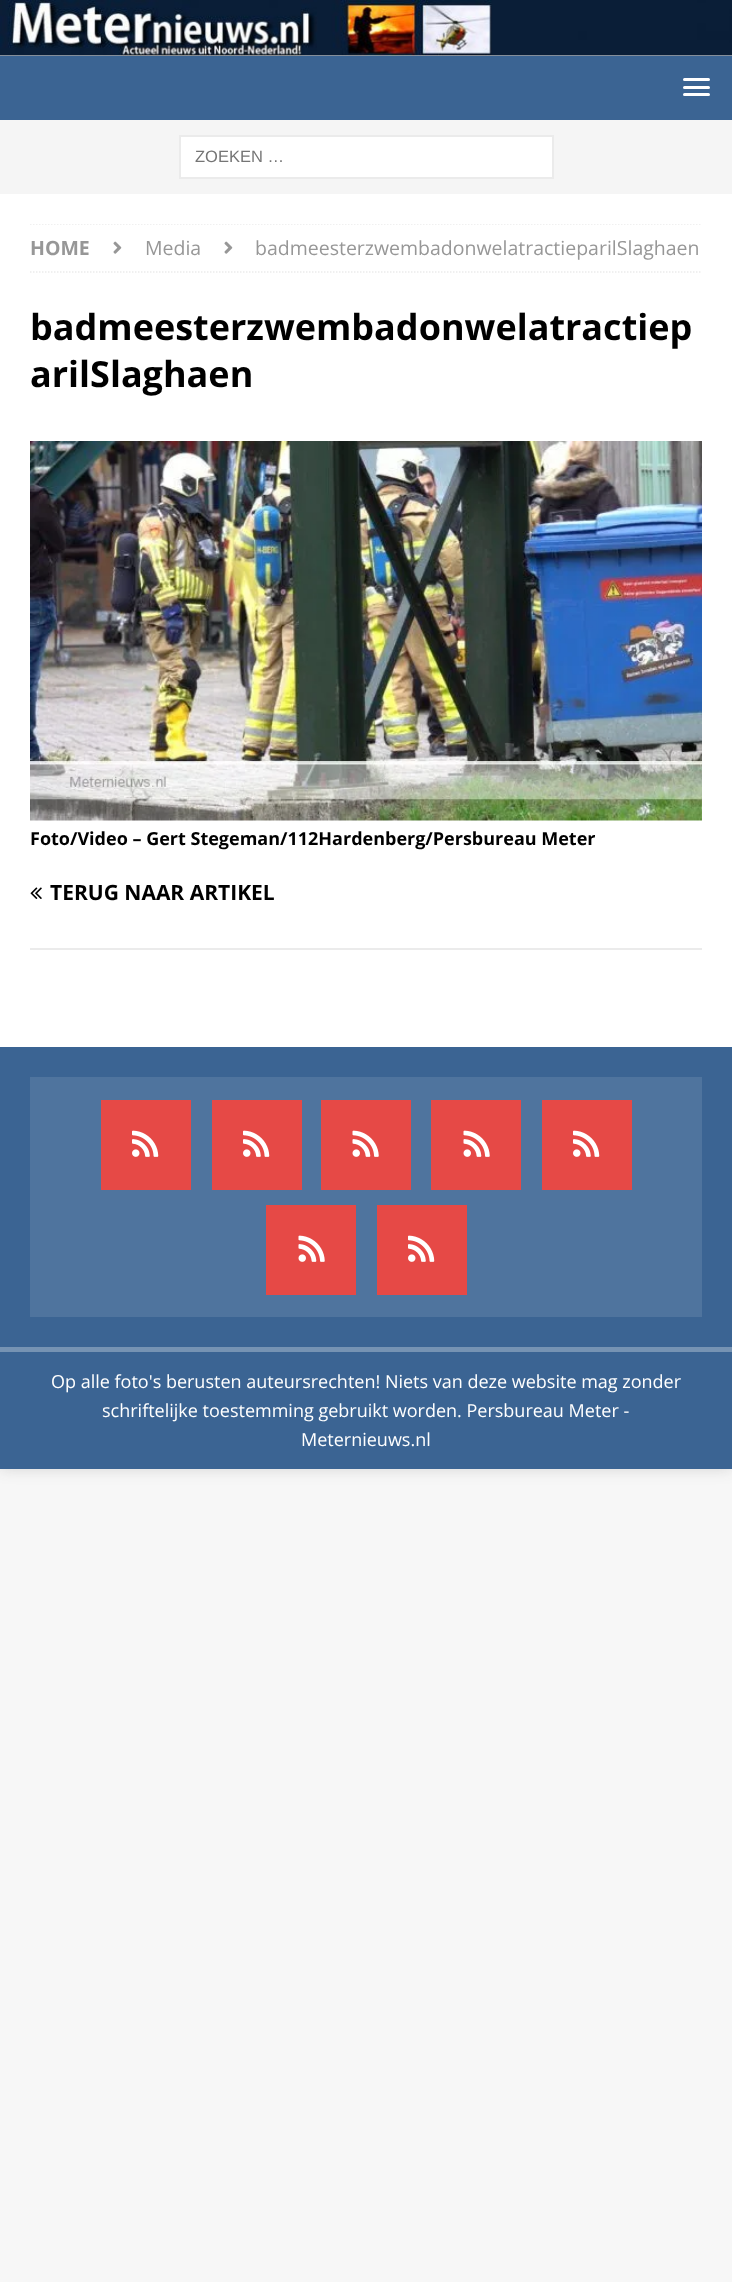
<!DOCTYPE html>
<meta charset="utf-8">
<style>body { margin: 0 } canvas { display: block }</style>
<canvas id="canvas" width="732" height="2282"></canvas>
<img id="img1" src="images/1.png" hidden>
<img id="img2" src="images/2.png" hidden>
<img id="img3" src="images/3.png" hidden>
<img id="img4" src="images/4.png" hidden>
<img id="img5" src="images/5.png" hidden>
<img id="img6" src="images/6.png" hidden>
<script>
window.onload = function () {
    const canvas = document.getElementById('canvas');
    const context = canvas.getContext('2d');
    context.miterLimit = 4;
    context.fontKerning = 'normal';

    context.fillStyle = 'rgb(247, 247, 247)';
    context.fillRect(0, 0, 732, 2282);
    context.fillStyle = 'rgba(50, 50, 50, 0.17)';
    context.filter = 'blur(7.5px)';
    context.beginPath();
    context.rect(0, 0, 732, 1469);
    context.fill();
    context.filter = 'none';
    context.fillStyle = 'rgb(255, 255, 255)';
    context.fillRect(0, 55, 732, 1);
    context.drawImage(document.getElementById('img1'), 0, 0, 732, 56);
    context.fillStyle = 'rgb(59, 100, 147)';
    context.fillRect(0, 56, 732, 64);
    context.fillStyle = 'rgb(255, 255, 255)';
    context.beginPath();
    context.roundRect(683, 78, 27, 3, 1.5);
    context.fill();
    context.beginPath();
    context.roundRect(683, 86, 27, 3, 1.5);
    context.fill();
    context.beginPath();
    context.roundRect(683, 93, 27, 3, 1.5);
    context.fill();
    context.fillStyle = 'rgb(245, 245, 245)';
    context.fillRect(0, 120, 732, 74);
    context.fillStyle = 'rgb(255, 255, 255)';
    context.beginPath();
    context.rect(180, 136, 373, 42);
    context.fill();
    context.strokeStyle = 'rgb(235, 235, 235)';
    context.lineWidth = 2;
    context.stroke();
    context.fillRect(0, 194, 732, 853);
    context.save();
    context.beginPath();
    context.rect(30, 224, 672, 763);
    context.clip();
    context.beginPath();
    context.moveTo(30, 224);
    context.lineTo(702, 224);
    context.lineWidth = 1.5;
    context.setLineDash([1.5, 1.5]);
    context.stroke();
    context.restore();
    context.beginPath();
    context.moveTo(30, 272);
    context.lineTo(702, 272);
    context.lineWidth = 1.5;
    context.setLineDash([1.5, 1.5]);
    context.stroke();
    context.drawImage(document.getElementById('img2'), 113, 241, 9, 13);
    context.drawImage(document.getElementById('img2'), 224, 241, 9, 13);
    context.drawImage(document.getElementById('img3'), 30, 441, 672, 380);
    context.fillStyle = 'rgb(235, 235, 235)';
    context.fillRect(30, 948, 672, 2);
    context.drawImage(document.getElementById('img4'), 30, 887, 12, 12);
    context.fillStyle = 'rgb(59, 100, 147)';
    context.fillRect(0, 1047, 732, 300);
    context.fillStyle = 'rgb(79, 116, 158)';
    context.fillRect(30, 1077, 672, 240);
    context.fillStyle = 'rgb(230, 73, 70)';
    context.fillRect(101, 1100, 90, 90);
    context.drawImage(document.getElementById('img5'), 132, 1130, 27, 27);
    context.fillRect(212, 1100, 90, 90);
    context.drawImage(document.getElementById('img5'), 243, 1130, 27, 27);
    context.fillRect(321, 1100, 90, 90);
    context.drawImage(document.getElementById('img6'), 352, 1130, 27, 27);
    context.fillRect(431, 1100, 90, 90);
    context.drawImage(document.getElementById('img6'), 463, 1130, 27, 27);
    context.fillRect(542, 1100, 90, 90);
    context.drawImage(document.getElementById('img5'), 573, 1130, 27, 27);
    context.fillRect(266, 1205, 90, 90);
    context.drawImage(document.getElementById('img6'), 298, 1235, 27, 27);
    context.fillRect(377, 1205, 90, 90);
    context.drawImage(document.getElementById('img5'), 408, 1235, 27, 27);
    context.fillStyle = 'rgb(59, 100, 147)';
    context.fillRect(0, 1352, 732, 117);
    context.fillStyle = 'rgb(118, 147, 179)';
    context.fillRect(0, 1347, 732, 5);
    context.font = '16.5px Liberation Sans';
    context.fillStyle = 'rgb(117, 117, 117)';
    context.fillText('ZOEKEN …', 195, 162);
    context.font = 'bold 19.5px Open Sans';
    context.fillStyle = 'rgb(151, 151, 151)';
    context.fillText('HOME', 30, 255);
    context.font = '19.5px Open Sans';
    context.fillText('Media', 145, 255);
    context.fillText('badmeesterzwembadonwelatractieparilSlaghaen', 255, 255);
    context.font = 'bold 36px Open Sans';
    context.fillStyle = 'rgb(0, 0, 0)';
    context.fillText('badmeesterzwembadonwelatractiep', 30, 340);
    context.fillText('arilSlaghaen', 30, 387);
    context.font = 'bold 18px Open Sans';
    context.fillText('Foto/Video – Gert Stegeman/112Hardenberg/Persbureau Meter', 30, 845);
    context.font = 'bold 21px Open Sans';
    context.fillText('TERUG NAAR ARTIKEL', 50, 900);
    context.font = '18px Open Sans';
    context.fillStyle = 'rgb(255, 255, 255)';
    context.fillText('Op alle foto\'s berusten auteursrechten! Niets van deze website mag zonder', 51, 1388);
    context.fillText('schriftelijke toestemming gebruikt worden. Persbureau Meter -', 102, 1417);
    context.fillText('Meternieuws.nl', 301, 1446);
};
</script>
